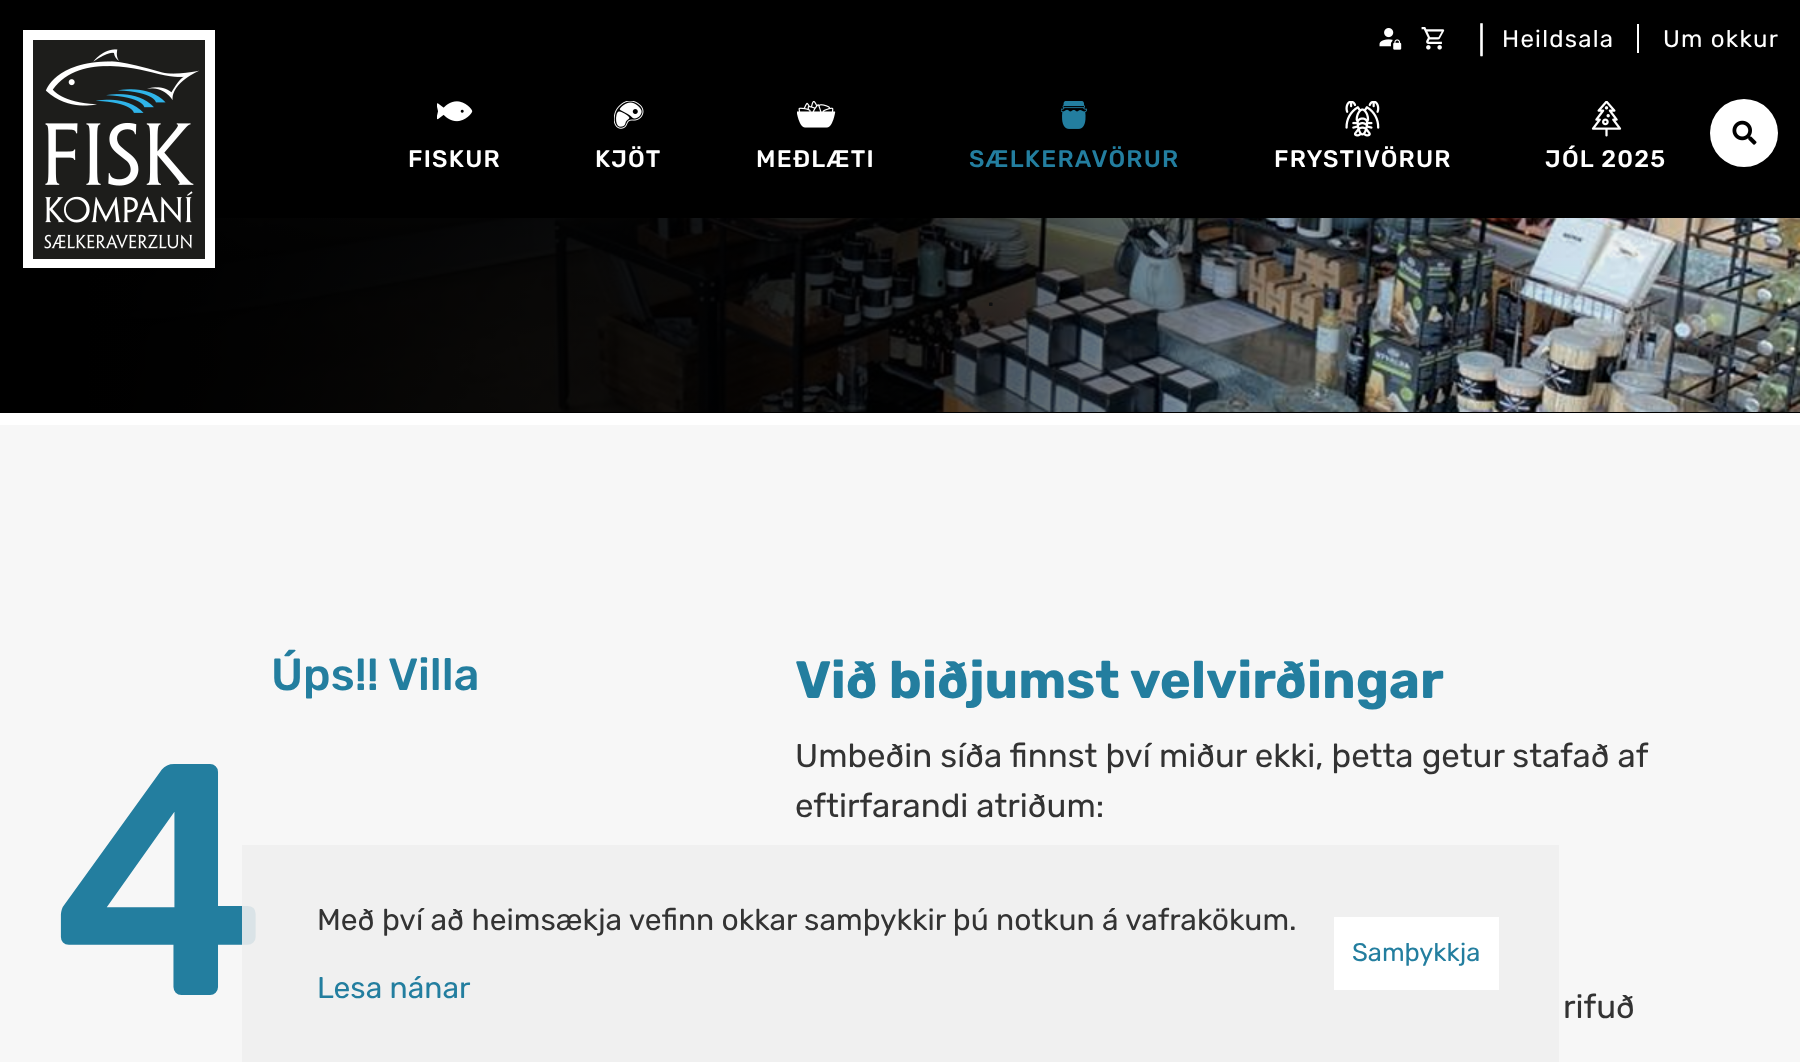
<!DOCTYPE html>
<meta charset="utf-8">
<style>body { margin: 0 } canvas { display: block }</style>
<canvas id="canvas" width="1800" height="1062"></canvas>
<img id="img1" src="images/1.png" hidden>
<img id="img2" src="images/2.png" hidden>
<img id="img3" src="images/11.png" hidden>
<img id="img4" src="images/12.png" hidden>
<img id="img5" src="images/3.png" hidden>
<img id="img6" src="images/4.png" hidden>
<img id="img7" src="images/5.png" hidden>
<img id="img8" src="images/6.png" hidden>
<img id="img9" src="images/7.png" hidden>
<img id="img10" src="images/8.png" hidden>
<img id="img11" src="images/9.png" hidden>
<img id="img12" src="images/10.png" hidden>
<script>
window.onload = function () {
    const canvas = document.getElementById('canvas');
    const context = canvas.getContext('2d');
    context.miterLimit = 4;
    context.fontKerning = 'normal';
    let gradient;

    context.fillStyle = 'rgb(247, 247, 247)';
    context.fillRect(0, 0, 1800, 1062);
    context.fillStyle = 'rgb(0, 0, 0)';
    context.fillRect(0, 0, 1800, 413);
    context.fillStyle = 'rgb(255, 255, 255)';
    context.fillRect(0, 413, 1800, 12);
    context.drawImage(document.getElementById('img1'), 1379, 28, 23, 22);
    context.drawImage(document.getElementById('img2'), 1421, 27, 24, 23);
    context.drawImage(document.getElementById('img3'), 89, 218, 691, 194);
    context.drawImage(document.getElementById('img4'), 89, 218, 1711, 194);
    gradient = context.createLinearGradient(48, 121, 1800, 121);
    gradient.addColorStop(0, 'rgb(0, 0, 0)');
    gradient.addColorStop(0.4, 'rgba(0, 0, 0, 0.9)');
    gradient.addColorStop(0.6, 'rgba(0, 0, 0, 0.5)');
    gradient.addColorStop(0.8, 'rgba(0, 0, 0, 0.1)');
    gradient.addColorStop(1, 'rgba(0, 0, 0, 0)');
    context.fillStyle = gradient;
    context.fillRect(89, 218, 1635, 194);
    context.drawImage(document.getElementById('img5'), 23, 30, 192, 238);
    context.fillStyle = 'rgb(255, 255, 255)';
    context.fillRect(1637, 24, 2, 29);
    context.drawImage(document.getElementById('img6'), 437, 101, 36, 21);
    context.drawImage(document.getElementById('img7'), 614, 101, 30, 28);
    context.drawImage(document.getElementById('img8'), 797, 101, 39, 27);
    context.drawImage(document.getElementById('img9'), 1061, 101, 27, 28);
    context.drawImage(document.getElementById('img10'), 1345, 101, 35, 36);
    context.drawImage(document.getElementById('img11'), 1591, 101, 31, 36);
    context.beginPath();
    context.arc(1744, 133, 34, 0, 2 * Math.PI);
    context.fill();
    context.drawImage(document.getElementById('img12'), 1732, 120, 25, 25);
    context.font = '300 30px "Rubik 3"';
    context.fillText('|', 1478, 50);
    context.fillStyle = 'rgb(15, 16, 17)';
    context.fillText('.', 987, 306);
    context.letterSpacing = '1.25px';
    context.font = '300 24px "Rubik 3"';
    context.fillStyle = 'rgb(255, 255, 255)';
    context.fillText('Heildsala', 1502, 47);
    context.fillText('Um okkur', 1663, 47);
    context.font = '300 24px Rubik';
    context.fillText('FISKUR', 408, 167);
    context.fillText('KJÖT', 595, 167);
    context.fillText('MEÐLÆTI', 756, 167);
    context.fillStyle = 'rgb(35, 126, 159)';
    context.fillText('SÆLKERAVÖRUR', 969, 167);
    context.fillStyle = 'rgb(255, 255, 255)';
    context.fillText('FRYSTIVÖRUR', 1274, 167);
    context.fillText('JÓL 2025', 1545, 167);
    context.letterSpacing = '0px';
    context.font = '300 45px Rubik';
    context.fillStyle = 'rgb(35, 126, 159)';
    context.fillText('Úps!! Villa', 271, 690);
    context.font = '300 330px Rubik';
    context.fillText('4', 51, 995);
    context.font = '300 52.5px "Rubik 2"';
    context.fillText('Við biðjumst velvirðingar', 795, 698);
    context.font = '300 33px "Rubik 3"';
    context.fillStyle = 'rgb(51, 51, 51)';
    context.fillText('Umbeðin síða finnst því miður ekki, þetta getur stafað af', 795, 767);
    context.fillText('eftirfarandi atriðum:', 795, 817);
    context.fillText('rifuð', 1563, 1018);
    context.fillStyle = 'rgba(238, 238, 238, 0.9)';
    context.fillRect(242, 845, 1317, 217);
    context.font = '300 30px "Rubik 3"';
    context.fillStyle = 'rgb(51, 51, 51)';
    context.fillText('Með því að heimsækja vefinn okkar samþykkir þú notkun á vafrakökum.', 317, 930);
    context.fillStyle = 'rgb(35, 126, 159)';
    context.fillText('Lesa nánar', 317, 998);
    context.fillStyle = 'rgb(255, 255, 255)';
    context.fillRect(1334, 917, 165, 73);
    context.font = '300 25.5px "Rubik 3"';
    context.fillStyle = 'rgb(35, 126, 159)';
    context.fillText('Samþykkja', 1352, 961);
};
</script>
